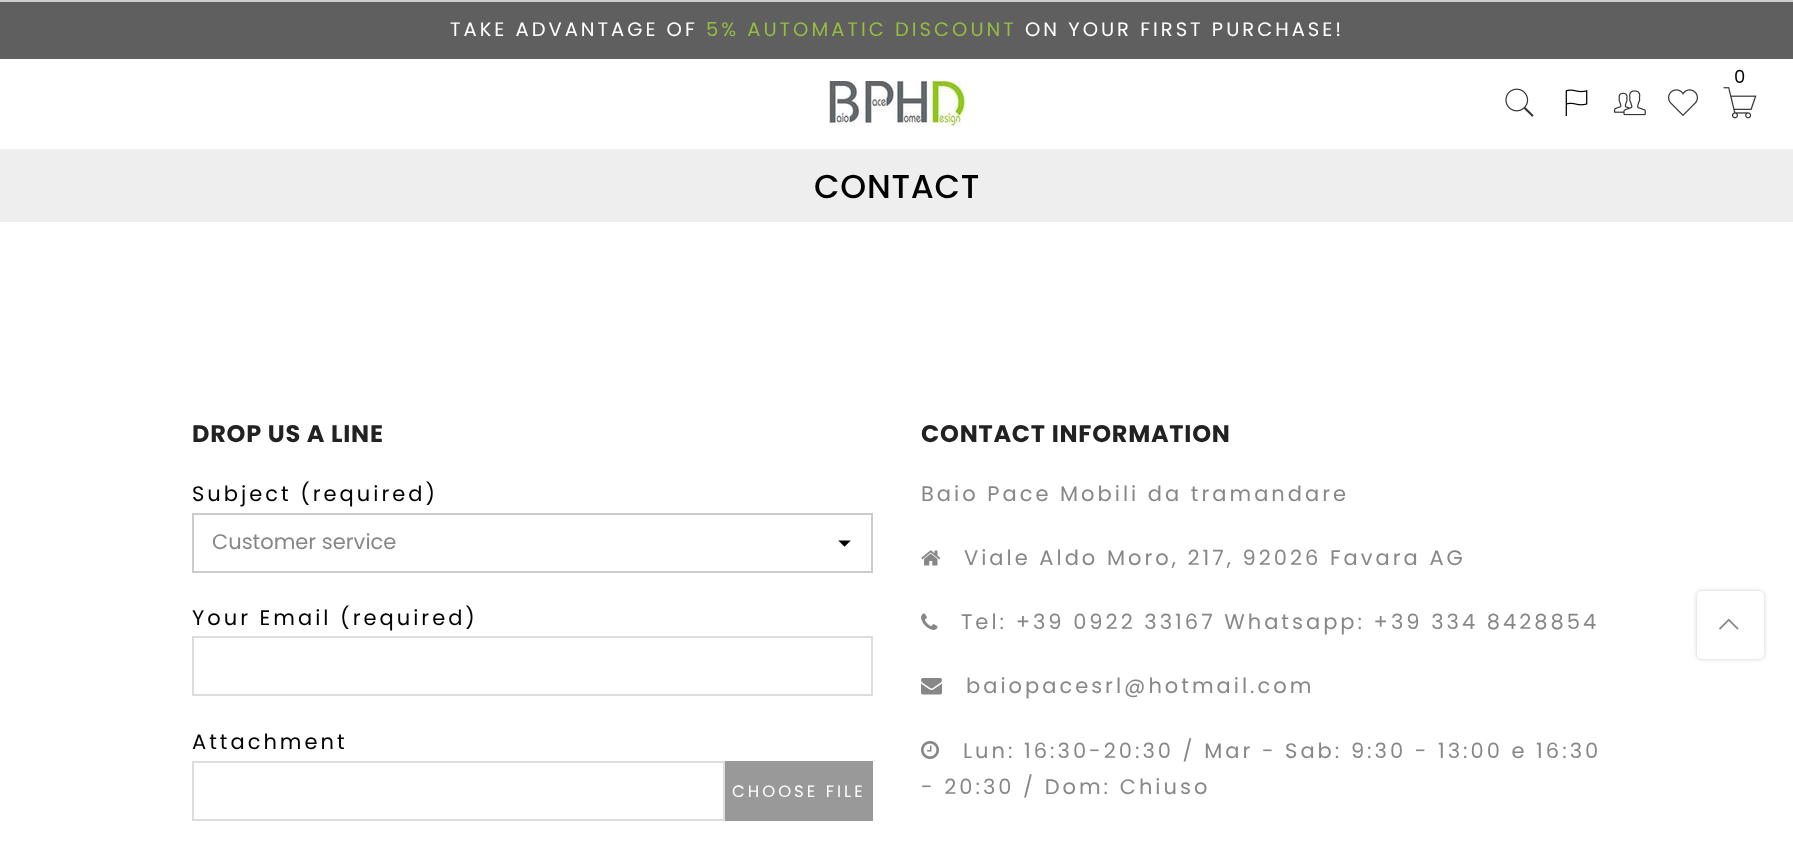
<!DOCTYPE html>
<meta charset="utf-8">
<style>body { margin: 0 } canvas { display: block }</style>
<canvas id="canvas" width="1793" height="858"></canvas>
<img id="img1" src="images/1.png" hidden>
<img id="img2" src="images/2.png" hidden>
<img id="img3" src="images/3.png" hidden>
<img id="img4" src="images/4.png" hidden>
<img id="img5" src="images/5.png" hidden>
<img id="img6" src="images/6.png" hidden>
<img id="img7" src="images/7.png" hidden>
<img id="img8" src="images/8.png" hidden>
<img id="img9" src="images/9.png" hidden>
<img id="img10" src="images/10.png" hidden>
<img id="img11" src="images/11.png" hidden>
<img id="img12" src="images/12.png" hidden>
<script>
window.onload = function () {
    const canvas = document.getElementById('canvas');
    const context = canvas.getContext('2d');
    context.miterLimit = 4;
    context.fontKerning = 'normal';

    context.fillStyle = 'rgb(255, 255, 255)';
    context.fillRect(0, 0, 1793, 858);
    context.fillStyle = 'rgb(95, 95, 95)';
    context.fillRect(0, 2, 1793, 57);
    context.fillStyle = 'rgb(204, 204, 204)';
    context.fillRect(0, 0, 1793, 2);
    context.drawImage(document.getElementById('img1'), 1723, 87, 34, 32);
    context.drawImage(document.getElementById('img2'), 1505, 88, 29, 29);
    context.drawImage(document.getElementById('img3'), 1565, 89, 23, 27);
    context.drawImage(document.getElementById('img4'), 1614, 90, 32, 26);
    context.drawImage(document.getElementById('img5'), 1668, 89, 30, 27);
    context.drawImage(document.getElementById('img6'), 829, 81, 137, 45);
    context.fillStyle = 'rgb(238, 238, 238)';
    context.fillRect(0, 149, 1793, 73);
    context.drawImage(document.getElementById('img7'), 838, 540, 13, 7);
    context.strokeStyle = 'rgb(204, 204, 204)';
    context.lineWidth = 2;
    context.strokeRect(193, 514, 679, 58);
    context.strokeStyle = 'rgb(221, 221, 221)';
    context.strokeRect(193, 637, 679, 58);
    context.strokeRect(193, 762, 531, 58);
    context.fillStyle = 'rgb(153, 153, 153)';
    context.fillRect(725, 761, 148, 60);
    context.drawImage(document.getElementById('img8'), 921, 550, 20, 16);
    context.drawImage(document.getElementById('img9'), 921, 613, 17, 17);
    context.drawImage(document.getElementById('img10'), 921, 678, 21, 17);
    context.drawImage(document.getElementById('img11'), 921, 741, 18, 18);
    context.fillStyle = 'rgba(0, 0, 0, 0.2)';
    context.filter = 'blur(2px)';
    context.beginPath();
    context.roundRect(1697, 591, 67, 68, 5);
    context.fill();
    context.filter = 'none';
    context.fillStyle = 'rgb(255, 255, 255)';
    context.beginPath();
    context.roundRect(1697, 591, 67, 68, 5);
    context.fill();
    context.drawImage(document.getElementById('img12'), 1719, 618, 20, 12);
    context.letterSpacing = '3px';
    context.font = '19.5px Poppins';
    context.fillText('TAKE ADVANTAGE OF', 450, 36);
    context.fillStyle = 'rgb(150, 188, 64)';
    context.fillText('5% AUTOMATIC DISCOUNT', 706, 36);
    context.fillStyle = 'rgb(255, 255, 255)';
    context.fillText('ON YOUR FIRST PURCHASE!', 1025, 36);
    context.font = '18px Poppins';
    context.fillStyle = 'rgb(0, 0, 0)';
    context.fillText('0', 1734, 83);
    context.letterSpacing = '0.75px';
    context.font = '500 33px Poppins';
    context.fillText('CONTACT', 814, 198);
    context.font = 'bold 24px Poppins';
    context.fillStyle = 'rgb(34, 34, 34)';
    context.fillText('DROP US A LINE', 192, 442);
    context.letterSpacing = '3px';
    context.font = '21px Poppins';
    context.fillStyle = 'rgb(0, 0, 0)';
    context.fillText('Subject (required)', 192, 501);
    context.letterSpacing = '0px';
    context.fillStyle = 'rgb(135, 135, 135)';
    context.fillText('Customer service', 212, 549);
    context.letterSpacing = '3px';
    context.fillStyle = 'rgb(0, 0, 0)';
    context.fillText('Your Email (required)', 192, 625);
    context.fillText('Attachment', 192, 749);
    context.font = '16.5px Poppins';
    context.fillStyle = 'rgb(255, 255, 255)';
    context.fillText('CHOOSE FILE', 732, 797);
    context.letterSpacing = '0.75px';
    context.font = 'bold 24px Poppins';
    context.fillStyle = 'rgb(34, 34, 34)';
    context.fillText('CONTACT INFORMATION', 921, 442);
    context.letterSpacing = '3px';
    context.font = '21px Poppins';
    context.fillStyle = 'rgb(135, 135, 135)';
    context.fillText('Baio Pace Mobili da tramandare', 921, 501);
    context.fillText('Viale Aldo Moro, 217, 92026 Favara AG', 964, 565);
    context.fillText('Tel: +39 0922 33167 Whatsapp: +39 334 8428854', 961, 629);
    context.fillText('baiopacesrl@hotmail.com', 966, 693);
    context.fillText('Lun: 16:30-20:30 / Mar - Sab: 9:30 - 13:00 e 16:30', 963, 758);
    context.fillText('- 20:30 / Dom: Chiuso', 921, 794);
};
</script>
